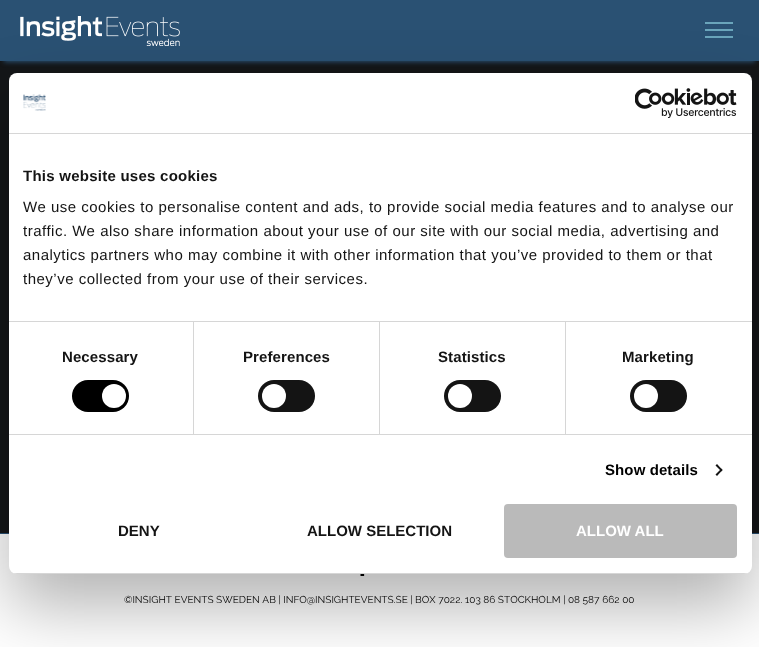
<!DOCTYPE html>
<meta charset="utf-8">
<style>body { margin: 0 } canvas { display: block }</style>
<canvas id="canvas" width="759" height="647"></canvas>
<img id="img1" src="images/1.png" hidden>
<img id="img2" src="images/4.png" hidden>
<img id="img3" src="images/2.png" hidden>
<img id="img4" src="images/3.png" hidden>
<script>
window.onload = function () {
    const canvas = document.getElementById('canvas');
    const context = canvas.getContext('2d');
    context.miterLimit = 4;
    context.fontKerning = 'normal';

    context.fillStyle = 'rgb(20, 22, 24)';
    context.fillRect(0, 0, 759, 647);
    context.fillStyle = 'rgb(42, 81, 115)';
    context.filter = 'blur(2.5px)';
    context.beginPath();
    context.rect(4, 9, 751, 53);
    context.fill();
    context.filter = 'none';
    context.fillRect(0, 0, 759, 61);
    context.drawImage(document.getElementById('img1'), 20, 16, 160, 30);
    context.fillStyle = 'rgb(106, 165, 187)';
    context.fillRect(705, 29, 28, 2);
    context.fillRect(705, 22, 28, 2);
    context.fillRect(705, 36, 28, 2);
    context.fillStyle = 'rgb(42, 81, 115)';
    context.fillRect(0, 533, 759, 1);
    context.fillStyle = 'rgb(255, 255, 255)';
    context.fillRect(0, 534, 759, 113);
    context.drawImage(document.getElementById('img2'), 360, 574, 5, 2);
    context.fillStyle = 'rgba(0, 0, 0, 0.3)';
    context.filter = 'blur(34px)';
    context.beginPath();
    context.roundRect(9, 105, 743, 501, 8);
    context.fill();
    context.filter = 'none';
    context.fillStyle = 'rgb(255, 255, 255)';
    context.beginPath();
    context.roundRect(9, 73, 743, 501, 8);
    context.fill();
    context.fillStyle = 'rgb(214, 214, 214)';
    context.fillRect(9, 133, 743, 1);
    context.drawImage(document.getElementById('img3'), 23, 94, 23, 17);
    context.drawImage(document.getElementById('img4'), 635, 88, 102, 30);
    context.fillRect(9, 321, 743, 1);
    context.fillRect(9, 434, 743, 1);
    context.fillRect(193, 322, 1, 112);
    context.fillStyle = 'rgb(0, 0, 0)';
    context.beginPath();
    context.roundRect(72, 380, 57, 32, 16);
    context.fill();
    context.fillStyle = 'rgb(255, 255, 255)';
    context.beginPath();
    context.arc(114, 396, 12, 0, 2 * Math.PI);
    context.fill();
    context.fillStyle = 'rgb(214, 214, 214)';
    context.fillRect(379, 322, 1, 112);
    context.fillStyle = 'rgb(20, 20, 20)';
    context.beginPath();
    context.roundRect(258, 380, 57, 32, 16);
    context.fill();
    context.fillStyle = 'rgb(255, 255, 255)';
    context.beginPath();
    context.arc(274, 396, 12, 0, 2 * Math.PI);
    context.fill();
    context.fillStyle = 'rgb(214, 214, 214)';
    context.fillRect(565, 322, 1, 112);
    context.fillStyle = 'rgb(20, 20, 20)';
    context.beginPath();
    context.roundRect(444, 380, 57, 32, 16);
    context.fill();
    context.fillStyle = 'rgb(255, 255, 255)';
    context.beginPath();
    context.arc(460, 396, 12, 0, 2 * Math.PI);
    context.fill();
    context.fillStyle = 'rgb(20, 20, 20)';
    context.beginPath();
    context.roundRect(630, 380, 57, 32, 16);
    context.fill();
    context.fillStyle = 'rgb(255, 255, 255)';
    context.beginPath();
    context.arc(646, 396, 12, 0, 2 * Math.PI);
    context.fill();
    context.fillStyle = 'rgb(20, 20, 20)';
    context.beginPath();
    context.moveTo(717, 464);
    context.lineTo(722.5, 470);
    context.lineTo(721.5, 471.5);
    context.lineTo(715.5, 465.5);
    context.closePath();
    context.fill();
    context.beginPath();
    context.moveTo(721.5, 468.5);
    context.lineTo(722.5, 470);
    context.lineTo(717, 476);
    context.lineTo(715.5, 474.5);
    context.closePath();
    context.fill();
    context.save();
    context.beginPath();
    context.roundRect(9, 73, 743, 501, 8);
    context.clip();
    context.fillStyle = 'rgb(214, 214, 214)';
    context.fillRect(9, 573, 743, 1);
    context.restore();
    context.fillStyle = 'rgb(186, 186, 186)';
    context.beginPath();
    context.roundRect(504, 504, 233, 54, 4);
    context.fill();
    context.letterSpacing = '0.25px';
    context.font = 'bold 15px Liberation Sans';
    context.fillStyle = 'rgb(20, 20, 20)';
    context.fillText('This website uses cookies', 23, 181);
    context.letterSpacing = '0.5px';
    context.font = '15px Liberation Sans';
    context.fillText('We use cookies to personalise content and ads, to provide social media features and to analyse our', 23, 212);
    context.fillText('traffic. We also share information about your use of our site with our social media, advertising and', 23, 236);
    context.fillText('analytics partners who may combine it with other information that you’ve provided to them or that', 23, 260);
    context.fillText('they’ve collected from your use of their services.', 23, 284);
    context.letterSpacing = '0.1px';
    context.font = 'bold 15px Liberation Sans';
    context.fillText('Necessary', 62, 362);
    context.fillText('Preferences', 243, 362);
    context.fillText('Statistics', 438, 362);
    context.fillText('Marketing', 622, 362);
    context.fillStyle = 'rgb(0, 0, 0)';
    context.fillText('Show details', 605, 475);
    context.letterSpacing = '0px';
    context.fillStyle = 'rgb(20, 20, 20)';
    context.fillText('DENY', 118, 536);
    context.fillText('ALLOW SELECTION', 307, 536);
    context.fillStyle = 'rgb(255, 255, 255)';
    context.fillText('ALLOW ALL', 576, 536);
    context.font = '10px Raleway';
    context.fillStyle = 'rgb(0, 0, 0)';
    context.fillText('©INSIGHT EVENTS SWEDEN AB | INFO@INSIGHTEVENTS.SE | BOX 7022. 103 86 STOCKHOLM | 08 587 662 00', 124, 603);
};
</script>
